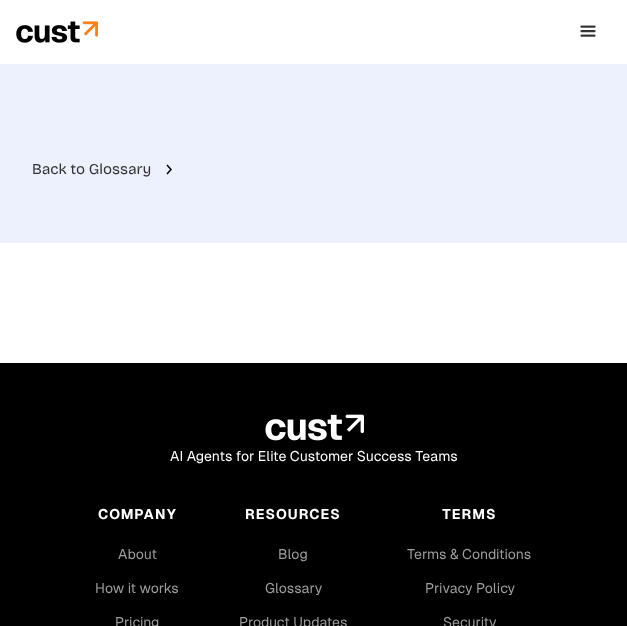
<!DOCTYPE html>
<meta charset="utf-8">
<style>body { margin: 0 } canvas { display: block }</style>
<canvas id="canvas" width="627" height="626"></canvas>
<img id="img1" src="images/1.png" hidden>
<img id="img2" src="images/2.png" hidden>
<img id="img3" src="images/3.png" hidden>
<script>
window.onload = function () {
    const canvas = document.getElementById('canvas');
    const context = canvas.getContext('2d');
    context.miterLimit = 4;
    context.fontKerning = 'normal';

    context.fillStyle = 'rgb(255, 255, 255)';
    context.fillRect(0, 0, 627, 626);
    context.drawImage(document.getElementById('img1'), 16, 21, 82, 22);
    context.drawImage(document.getElementById('img2'), 580, 25, 16, 12);
    context.fillStyle = 'rgb(237, 241, 254)';
    context.fillRect(0, 64, 627, 179);
    context.beginPath();
    context.moveTo(167, 165);
    context.lineTo(171, 169.5);
    context.lineTo(167, 174);
    context.strokeStyle = 'rgb(0, 0, 0)';
    context.lineWidth = 1.5;
    context.stroke();
    context.fillStyle = 'rgb(0, 0, 0)';
    context.fillRect(0, 363, 627, 263);
    context.drawImage(document.getElementById('img3'), 265, 414, 99, 27);
    context.font = '15px Bricolage Grotesque';
    context.fillStyle = 'rgb(51, 51, 51)';
    context.fillText('Back to Glossary', 32, 174);
    context.font = '14px Geist';
    context.fillStyle = 'rgb(255, 255, 255)';
    context.fillText('AI Agents for Elite Customer Success Teams', 170, 461);
    context.letterSpacing = '1px';
    context.font = 'bold 14px Geist';
    context.fillText('COMPANY', 98, 519);
    context.letterSpacing = '0px';
    context.font = '14px Geist';
    context.fillStyle = 'rgb(158, 158, 158)';
    context.fillText('About', 118, 559);
    context.fillText('How it works', 95, 593);
    context.fillText('Pricing', 115, 627);
    context.letterSpacing = '1px';
    context.font = 'bold 14px Geist';
    context.fillStyle = 'rgb(255, 255, 255)';
    context.fillText('RESOURCES', 245, 519);
    context.letterSpacing = '0px';
    context.font = '14px Geist';
    context.fillStyle = 'rgb(158, 158, 158)';
    context.fillText('Blog', 278, 559);
    context.fillText('Glossary', 265, 593);
    context.fillText('Product Updates', 239, 627);
    context.letterSpacing = '1px';
    context.font = 'bold 14px Geist';
    context.fillStyle = 'rgb(255, 255, 255)';
    context.fillText('TERMS', 442, 519);
    context.letterSpacing = '0px';
    context.font = '14px Geist';
    context.fillStyle = 'rgb(158, 158, 158)';
    context.fillText('Terms & Conditions', 407, 559);
    context.fillText('Privacy Policy', 425, 593);
    context.fillText('Security', 443, 627);
};
</script>
